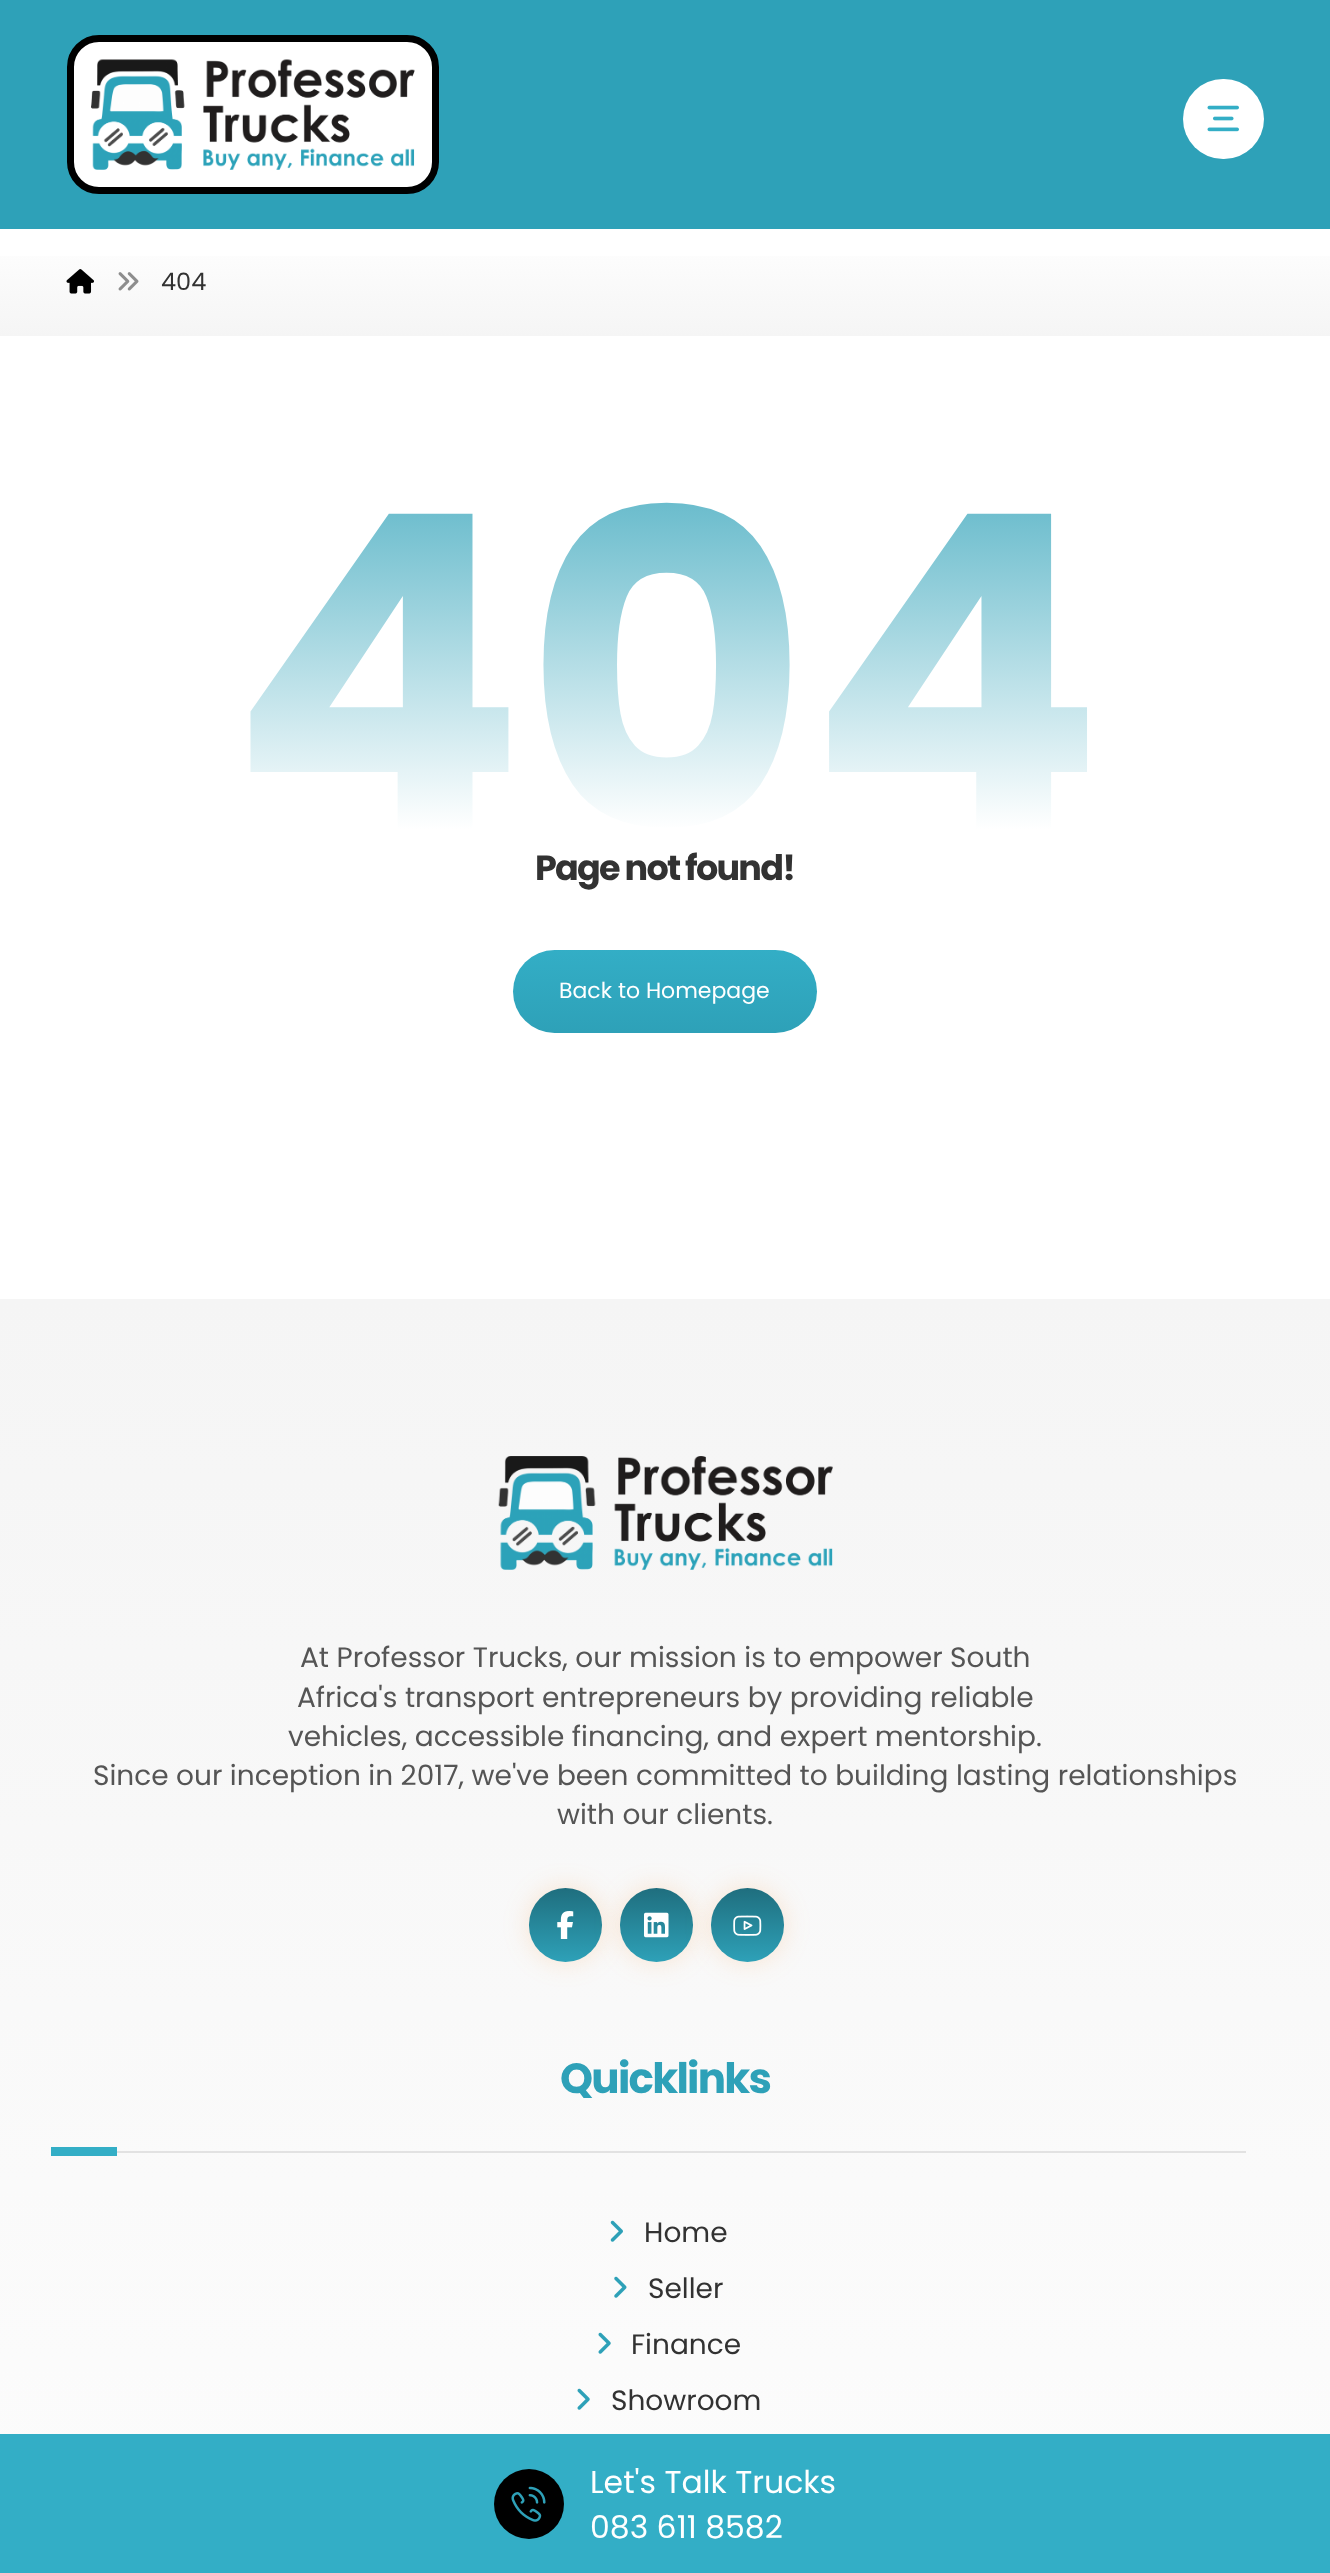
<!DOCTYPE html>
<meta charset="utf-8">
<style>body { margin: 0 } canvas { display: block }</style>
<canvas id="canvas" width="1330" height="2573"></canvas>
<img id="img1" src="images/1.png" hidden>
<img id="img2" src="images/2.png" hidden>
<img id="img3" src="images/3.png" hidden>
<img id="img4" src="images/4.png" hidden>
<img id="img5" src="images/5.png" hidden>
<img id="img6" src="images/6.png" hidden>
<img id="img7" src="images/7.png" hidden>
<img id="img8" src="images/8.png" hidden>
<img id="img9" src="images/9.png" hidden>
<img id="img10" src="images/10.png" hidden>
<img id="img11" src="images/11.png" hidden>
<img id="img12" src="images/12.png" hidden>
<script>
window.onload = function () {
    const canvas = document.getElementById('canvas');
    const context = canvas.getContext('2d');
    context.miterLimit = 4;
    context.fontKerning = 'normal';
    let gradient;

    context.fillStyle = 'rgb(255, 255, 255)';
    context.fillRect(0, 0, 1330, 2573);
    context.fillStyle = 'rgb(46, 161, 184)';
    context.fillRect(0, 0, 1330, 229);
    context.fillStyle = 'rgb(255, 255, 255)';
    context.beginPath();
    context.roundRect(70.5, 38.5, 365, 152, 28.5);
    context.fill();
    context.strokeStyle = 'rgb(0, 0, 0)';
    context.lineWidth = 7;
    context.stroke();
    context.drawImage(document.getElementById('img1'), 91, 59, 324, 111);
    context.beginPath();
    context.roundRect(1183, 79, 81, 80, 40);
    context.fill();
    context.drawImage(document.getElementById('img2'), 1207, 105, 32, 27);
    gradient = context.createLinearGradient(665, 336, 665, 229);
    gradient.addColorStop(0, 'rgb(245, 245, 245)');
    gradient.addColorStop(1, 'rgb(255, 255, 255)');
    context.fillStyle = gradient;
    context.fillRect(0, 256, 1330, 80);
    context.drawImage(document.getElementById('img3'), 66, 269, 28, 25);
    context.drawImage(document.getElementById('img4'), 118, 272, 21, 19);
    gradient = context.createLinearGradient(665, 1032, 665, 949);
    gradient.addColorStop(0, 'rgb(46, 161, 184)');
    gradient.addColorStop(1, 'rgb(51, 174, 198)');
    context.fillStyle = gradient;
    context.beginPath();
    context.roundRect(513, 950, 304, 83, 41.5);
    context.fill();
    gradient = context.createLinearGradient(665, 1299, 665, 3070);
    gradient.addColorStop(0, 'rgb(245, 245, 245)');
    gradient.addColorStop(1, 'rgb(255, 255, 255)');
    context.fillStyle = gradient;
    context.fillRect(0, 1299, 1330, 1135);
    context.drawImage(document.getElementById('img5'), 498, 1456, 335, 114);
    context.fillStyle = 'rgba(249, 145, 49, 0.2)';
    context.filter = 'blur(13px)';
    context.beginPath();
    context.roundRect(529, 1888, 73, 74, 36.5);
    context.fill();
    context.filter = 'none';
    gradient = context.createLinearGradient(565, 1962, 565, 1888);
    gradient.addColorStop(0, 'rgb(46, 161, 184)');
    gradient.addColorStop(1, 'rgb(31, 110, 126)');
    context.fillStyle = gradient;
    context.beginPath();
    context.roundRect(529, 1888, 73, 74, 36.5);
    context.fill();
    context.drawImage(document.getElementById('img6'), 557, 1911, 17, 28);
    context.fillStyle = 'rgba(249, 145, 49, 0.2)';
    context.filter = 'blur(13px)';
    context.beginPath();
    context.roundRect(620, 1888, 73, 74, 36.5);
    context.fill();
    context.filter = 'none';
    gradient = context.createLinearGradient(656, 1962, 656, 1888);
    gradient.addColorStop(0, 'rgb(46, 161, 184)');
    gradient.addColorStop(1, 'rgb(31, 110, 126)');
    context.fillStyle = gradient;
    context.beginPath();
    context.roundRect(620, 1888, 73, 74, 36.5);
    context.fill();
    context.drawImage(document.getElementById('img7'), 644, 1912, 25, 26);
    context.fillStyle = 'rgba(249, 145, 49, 0.2)';
    context.filter = 'blur(13px)';
    context.beginPath();
    context.roundRect(711, 1888, 73, 74, 36.5);
    context.fill();
    context.filter = 'none';
    gradient = context.createLinearGradient(747, 1962, 747, 1888);
    gradient.addColorStop(0, 'rgb(46, 161, 184)');
    gradient.addColorStop(1, 'rgb(31, 110, 126)');
    context.fillStyle = gradient;
    context.beginPath();
    context.roundRect(711, 1888, 73, 74, 36.5);
    context.fill();
    context.drawImage(document.getElementById('img8'), 733, 1915, 29, 21);
    context.fillStyle = 'rgb(226, 226, 226)';
    context.fillRect(117, 2151, 1129, 2);
    context.fillStyle = 'rgb(51, 174, 198)';
    context.fillRect(51, 2147, 66, 9);
    context.drawImage(document.getElementById('img9'), 610, 2220, 13, 22);
    context.drawImage(document.getElementById('img10'), 614, 2276, 13, 22);
    context.drawImage(document.getElementById('img11'), 598, 2332, 13, 22);
    context.drawImage(document.getElementById('img11'), 577, 2388, 13, 22);
    context.fillRect(0, 2434, 1330, 139);
    context.fillStyle = 'rgb(0, 0, 0)';
    context.beginPath();
    context.arc(529, 2504, 35, 0, 2 * Math.PI);
    context.fill();
    context.drawImage(document.getElementById('img12'), 511, 2486, 35, 36);
    context.font = '24px Poppins';
    context.fillStyle = 'rgb(50, 50, 50)';
    context.fillText('404', 161, 290);
    context.letterSpacing = '-1.75px';
    context.font = 'bold 438px Poppins';
    gradient = context.createLinearGradient(665, 369, 665, 983);
    gradient.addColorStop(0, 'rgb(46, 161, 184)');
    gradient.addColorStop(0.75, 'rgb(255, 255, 255)');
    context.fillStyle = gradient;
    context.fillText('404', 229, 829);
    context.font = 'bold 35px Poppins';
    context.fillStyle = 'rgb(50, 50, 50)';
    context.fillText('Page not found!', 535, 880);
    context.letterSpacing = '0px';
    context.font = '22px Poppins';
    context.fillStyle = 'rgb(255, 255, 255)';
    context.fillText('Back to Homepage', 559, 998);
    context.font = '28px Poppins';
    context.fillStyle = 'rgb(85, 85, 85)';
    context.fillText('At Professor Trucks, our mission is to empower South', 300, 1667);
    context.fillText('Africa\'s transport entrepreneurs by providing reliable', 297, 1707);
    context.fillText('vehicles, accessible financing, and expert mentorship.', 288, 1746);
    context.fillText('Since our inception in 2017, we\'ve been committed to building lasting relationships', 93, 1785);
    context.fillText('with our clients.', 557, 1824);
    context.letterSpacing = '-1.75px';
    context.font = 'bold 42px Poppins';
    context.fillStyle = 'rgb(46, 161, 184)';
    context.fillText('Quicklinks', 560, 2093);
    context.letterSpacing = '0px';
    context.font = '28px Poppins';
    context.fillStyle = 'rgb(50, 50, 50)';
    context.fillText('Home', 644, 2242);
    context.fillText('Seller', 648, 2298);
    context.fillText('Finance', 631, 2354);
    context.fillText('Showroom', 611, 2410);
    context.font = '31.5px Poppins';
    context.fillStyle = 'rgb(255, 255, 255)';
    context.fillText('Let\'s Talk Trucks', 590, 2493);
    context.fillText('083 611 8582', 590, 2538);
};
</script>
